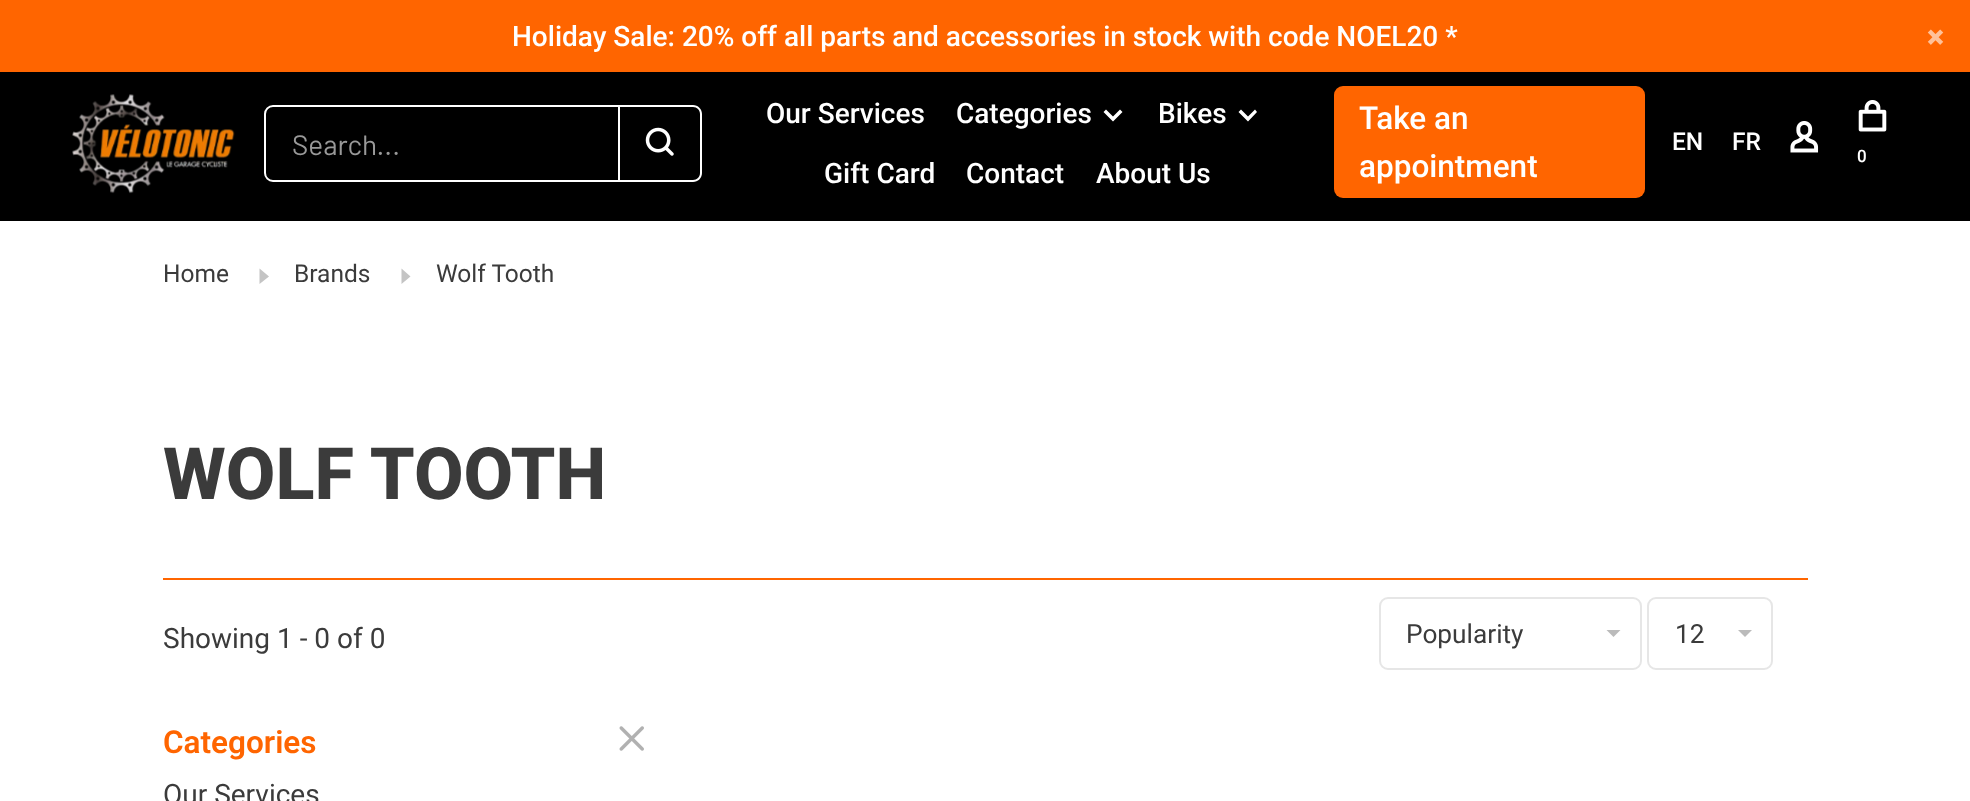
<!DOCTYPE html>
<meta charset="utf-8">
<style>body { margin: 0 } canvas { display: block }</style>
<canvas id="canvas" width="1970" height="801"></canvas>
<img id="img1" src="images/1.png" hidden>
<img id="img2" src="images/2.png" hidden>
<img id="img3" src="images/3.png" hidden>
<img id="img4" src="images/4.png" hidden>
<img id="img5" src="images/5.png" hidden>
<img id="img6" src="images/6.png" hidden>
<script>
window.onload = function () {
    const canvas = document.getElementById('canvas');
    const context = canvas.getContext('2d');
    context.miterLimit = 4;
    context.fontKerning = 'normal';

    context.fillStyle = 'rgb(255, 255, 255)';
    context.fillRect(0, 0, 1970, 801);
    context.fillStyle = 'rgb(255, 101, 0)';
    context.fillRect(0, 0, 1970, 72);
    context.drawImage(document.getElementById('img1'), 1927, 29, 17, 16);
    context.fillStyle = 'rgb(0, 0, 0)';
    context.fillRect(0, 72, 1970, 149);
    context.drawImage(document.getElementById('img2'), 72, 94, 163, 100);
    context.beginPath();
    context.roundRect(265, 106, 354, 75, [8, 0, 0, 8]);
    context.strokeStyle = 'rgb(255, 255, 255)';
    context.lineWidth = 2;
    context.stroke();
    context.fillStyle = 'rgb(255, 255, 255)';
    context.beginPath();
    context.moveTo(620, 105);
    context.lineTo(693, 105);
    context.bezierCurveTo(698, 105, 702, 109, 702, 114);
    context.lineTo(702, 173);
    context.bezierCurveTo(702, 178, 698, 182, 693, 182);
    context.lineTo(620, 182);
    context.closePath();
    context.moveTo(620, 107);
    context.lineTo(693, 107);
    context.bezierCurveTo(697, 107, 700, 110, 700, 114);
    context.lineTo(700, 173);
    context.bezierCurveTo(700, 177, 697, 180, 693, 180);
    context.lineTo(620, 180);
    context.closePath();
    context.fill('evenodd');
    context.drawImage(document.getElementById('img3'), 645, 127, 29, 29);
    context.beginPath();
    context.moveTo(1113, 121.5);
    context.lineTo(1103.5, 112);
    context.lineTo(1106, 109.5);
    context.lineTo(1113, 116.5);
    context.lineTo(1120, 109.5);
    context.lineTo(1122.5, 112);
    context.closePath();
    context.fill();
    context.beginPath();
    context.moveTo(1248, 121.5);
    context.lineTo(1238.5, 112);
    context.lineTo(1241, 109.5);
    context.lineTo(1248, 116.5);
    context.lineTo(1255, 109.5);
    context.lineTo(1257, 112);
    context.closePath();
    context.fill();
    context.fillStyle = 'rgb(255, 101, 0)';
    context.beginPath();
    context.roundRect(1334, 86, 311, 112, 9);
    context.fill();
    context.drawImage(document.getElementById('img4'), 1790, 121, 29, 32);
    context.drawImage(document.getElementById('img5'), 1858, 100, 29, 32);
    context.fillStyle = 'rgb(196, 196, 196)';
    context.beginPath();
    context.moveTo(259.5, 284);
    context.lineTo(269, 276.5);
    context.lineTo(259.5, 268.5);
    context.closePath();
    context.fill();
    context.beginPath();
    context.moveTo(401.5, 284);
    context.lineTo(410.5, 276.5);
    context.lineTo(401.5, 268.5);
    context.closePath();
    context.fill();
    context.fillStyle = 'rgb(255, 101, 0)';
    context.fillRect(163, 578, 1645, 2);
    context.beginPath();
    context.roundRect(1380, 598, 261, 71, 8);
    context.strokeStyle = 'rgb(230, 230, 230)';
    context.stroke();
    context.fillStyle = 'rgb(187, 187, 187)';
    context.beginPath();
    context.moveTo(1606.5, 630);
    context.lineTo(1620.5, 630);
    context.lineTo(1613.5, 637);
    context.closePath();
    context.fill();
    context.beginPath();
    context.roundRect(1648, 598, 124, 71, 8);
    context.stroke();
    context.beginPath();
    context.moveTo(1738, 630);
    context.lineTo(1752, 630);
    context.lineTo(1745, 637);
    context.closePath();
    context.fill();
    context.drawImage(document.getElementById('img6'), 619, 726, 25, 25);
    context.font = '500 28px Roboto';
    context.fillStyle = 'rgb(255, 255, 255)';
    context.fillText('Holiday Sale: 20% off all parts and accessories in stock with code NOEL20 *', 512, 46);
    context.font = '28px Barlow';
    context.fillStyle = 'rgb(153, 153, 153)';
    context.fillText('Search...', 292, 155);
    context.font = '500 28px Roboto';
    context.fillStyle = 'rgb(255, 255, 255)';
    context.fillText('Our Services', 766, 123);
    context.fillText('Categories', 956, 123);
    context.fillText('Bikes', 1158, 123);
    context.fillText('Gift Card', 824, 183);
    context.fillText('Contact', 966, 183);
    context.fillText('About Us', 1096, 183);
    context.font = '500 31.5px Roboto';
    context.fillText('Take an', 1359, 129);
    context.fillText('appointment', 1359, 177);
    context.font = '500 24.5px Roboto';
    context.fillText('EN', 1672, 150);
    context.fillText('FR', 1732, 150);
    context.font = '500 17px Roboto';
    context.fillText('0', 1857, 162);
    context.font = '24.5px Roboto';
    context.fillStyle = 'rgb(59, 59, 59)';
    context.fillText('Home', 163, 282);
    context.fillText('Brands', 294, 282);
    context.fillText('Wolf Tooth', 436, 282);
    context.font = '800 72px Roboto';
    context.fillText('WOLF TOOTH', 163, 499);
    context.font = '28px Roboto';
    context.fillText('Showing 1 - 0 of 0', 163, 648);
    context.font = '26.25px Roboto';
    context.fillText('Popularity', 1406, 643);
    context.fillText('12', 1675, 643);
    context.font = '600 31.5px Roboto';
    context.fillStyle = 'rgb(255, 101, 0)';
    context.fillText('Categories', 163, 753);
    context.font = '28px Roboto';
    context.fillStyle = 'rgb(59, 59, 59)';
    context.fillText('Our Services', 163, 804);
};
</script>
